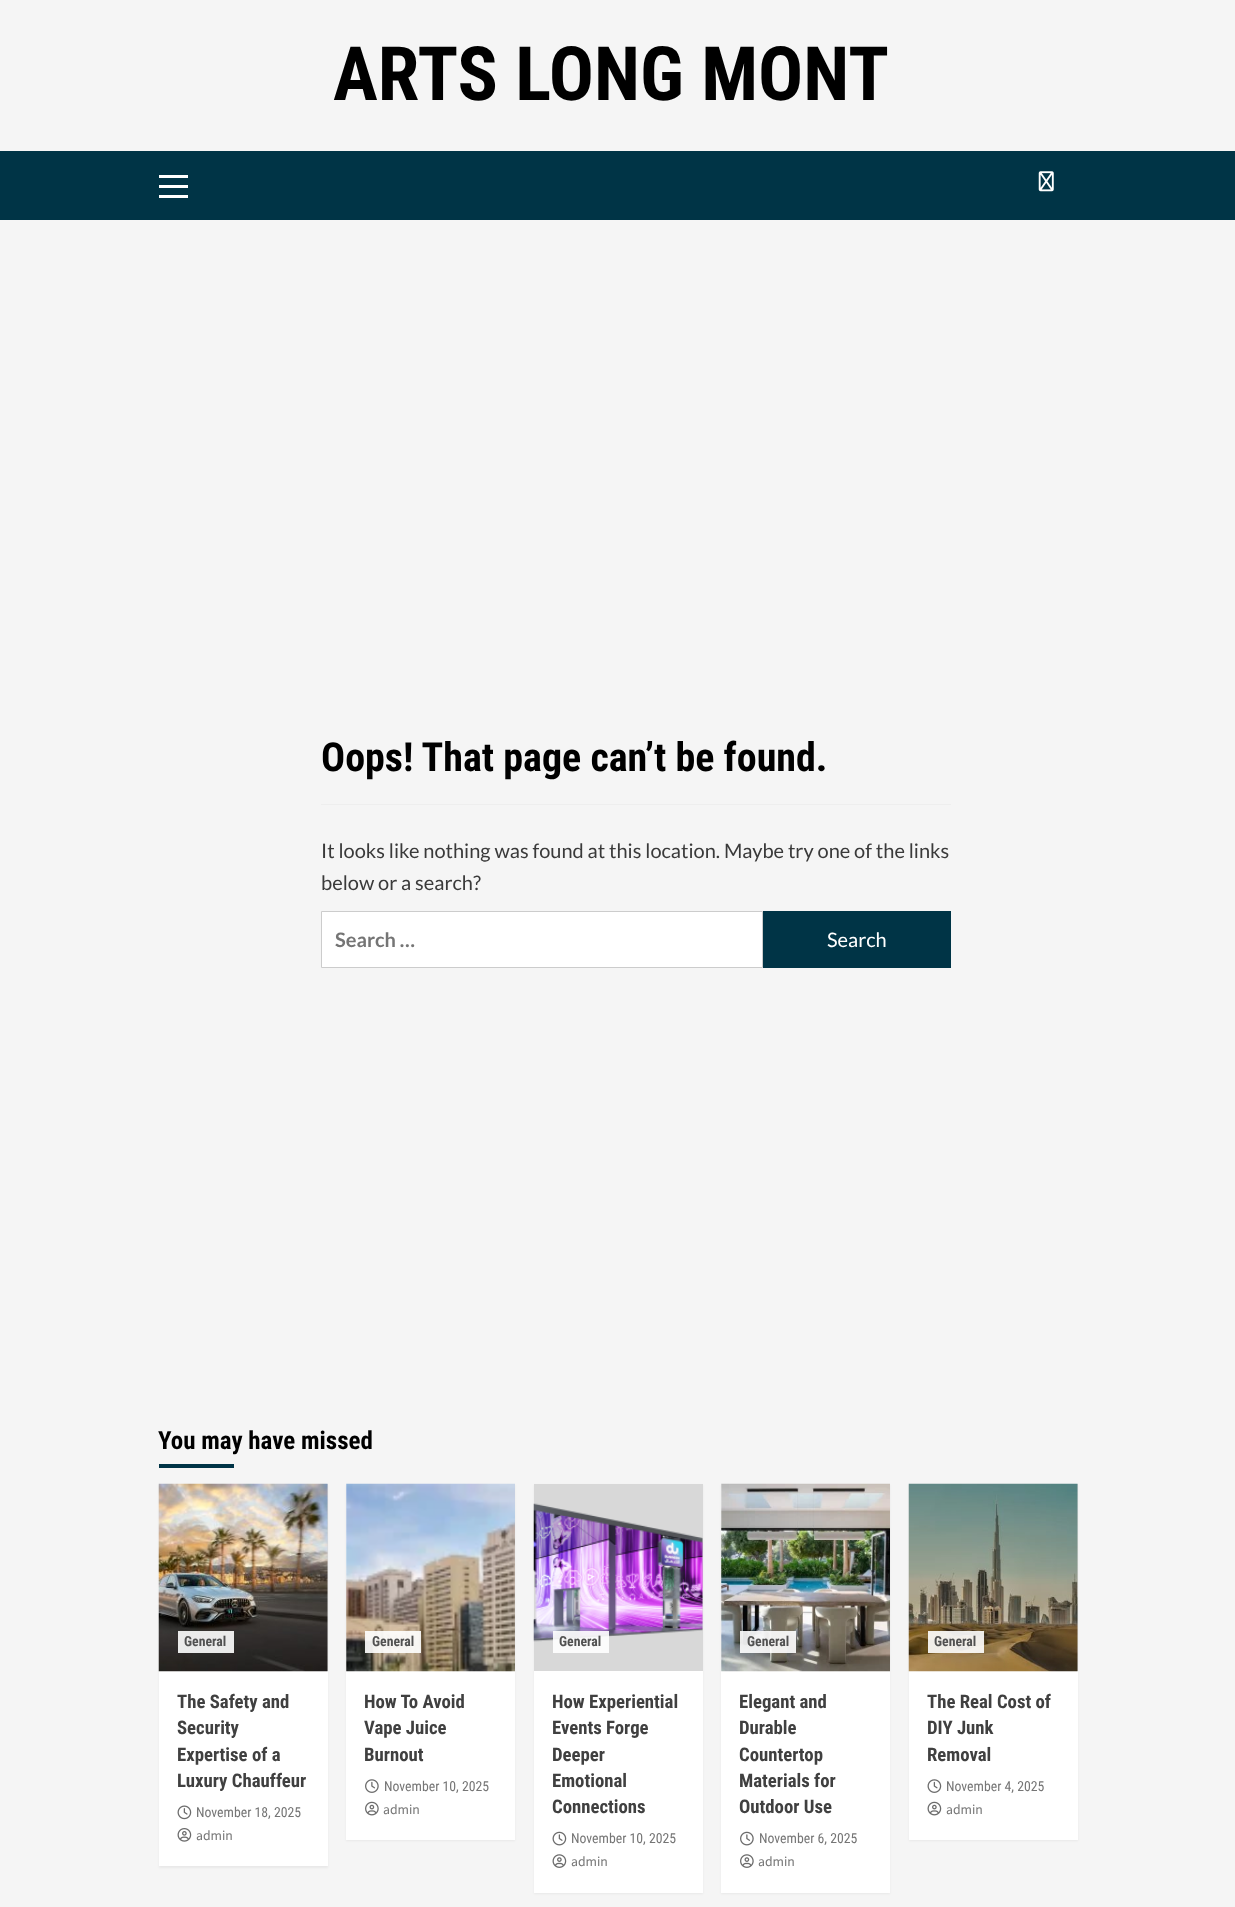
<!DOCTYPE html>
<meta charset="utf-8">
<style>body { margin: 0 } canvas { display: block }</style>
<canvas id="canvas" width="1235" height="1907"></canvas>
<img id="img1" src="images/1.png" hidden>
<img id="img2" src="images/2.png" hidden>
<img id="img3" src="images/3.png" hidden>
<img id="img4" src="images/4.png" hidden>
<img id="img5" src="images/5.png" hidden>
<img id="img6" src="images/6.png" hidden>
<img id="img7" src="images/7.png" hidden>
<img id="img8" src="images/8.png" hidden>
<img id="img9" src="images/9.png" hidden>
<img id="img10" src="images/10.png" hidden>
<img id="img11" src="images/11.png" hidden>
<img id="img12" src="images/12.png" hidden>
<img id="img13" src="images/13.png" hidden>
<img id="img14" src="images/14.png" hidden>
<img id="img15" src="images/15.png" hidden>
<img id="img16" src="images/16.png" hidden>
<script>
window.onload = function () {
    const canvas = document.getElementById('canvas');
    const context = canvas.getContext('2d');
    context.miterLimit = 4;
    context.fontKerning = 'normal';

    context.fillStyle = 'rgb(245, 245, 245)';
    context.fillRect(0, 0, 1235, 1907);
    context.fillStyle = 'rgb(0, 52, 70)';
    context.fillRect(0, 151, 1235, 69);
    context.fillStyle = 'rgb(255, 255, 255)';
    context.fillRect(159, 185, 29, 3);
    context.fillRect(159, 175, 29, 3);
    context.fillRect(159, 195, 29, 3);
    context.drawImage(document.getElementById('img1'), 1038, 171, 16, 21);
    context.fillStyle = 'rgb(238, 238, 238)';
    context.fillRect(321, 804, 630, 1);
    context.fillStyle = 'rgb(255, 255, 255)';
    context.beginPath();
    context.rect(321.5, 911.5, 441, 56);
    context.fill();
    context.strokeStyle = 'rgb(204, 204, 204)';
    context.stroke();
    context.fillStyle = 'rgb(0, 52, 70)';
    context.fillRect(763, 911, 188, 57);
    context.fillRect(159, 1464, 75, 4);
    context.fillStyle = 'rgba(0, 0, 0, 0.05)';
    context.filter = 'blur(1px)';
    context.beginPath();
    context.rect(159, 1485, 169, 383);
    context.fill();
    context.filter = 'none';
    context.fillStyle = 'rgb(255, 255, 255)';
    context.fillRect(159, 1671, 169, 195);
    context.fillStyle = 'rgb(216, 216, 216)';
    context.fillRect(327, 1484, 1, 187);
    context.drawImage(document.getElementById('img2'), 158, 1483, 170, 189);
    context.fillStyle = 'rgba(255, 255, 255, 0.9)';
    context.fillRect(178, 1631, 56, 22);
    context.drawImage(document.getElementById('img3'), 177, 1805, 15, 15);
    context.drawImage(document.getElementById('img4'), 177, 1828, 15, 14);
    context.fillStyle = 'rgba(0, 0, 0, 0.05)';
    context.filter = 'blur(1px)';
    context.beginPath();
    context.rect(346, 1485, 169, 356);
    context.fill();
    context.filter = 'none';
    context.fillStyle = 'rgb(255, 255, 255)';
    context.fillRect(346, 1484, 169, 356);
    context.drawImage(document.getElementById('img5'), 346, 1483, 169, 189);
    context.fillStyle = 'rgba(255, 255, 255, 0.9)';
    context.fillRect(365, 1631, 56, 22);
    context.drawImage(document.getElementById('img6'), 365, 1779, 14, 14);
    context.drawImage(document.getElementById('img7'), 365, 1801, 14, 15);
    context.fillStyle = 'rgba(0, 0, 0, 0.05)';
    context.filter = 'blur(1px)';
    context.beginPath();
    context.rect(534, 1485, 169, 409);
    context.fill();
    context.filter = 'none';
    context.fillStyle = 'rgb(255, 255, 255)';
    context.fillRect(534, 1671, 169, 222);
    context.fillStyle = 'rgb(216, 216, 216)';
    context.fillRect(534, 1484, 169, 187);
    context.drawImage(document.getElementById('img8'), 533, 1503, 170, 139);
    context.fillStyle = 'rgba(255, 255, 255, 0.9)';
    context.fillRect(553, 1631, 56, 22);
    context.drawImage(document.getElementById('img9'), 552, 1831, 15, 15);
    context.drawImage(document.getElementById('img10'), 552, 1854, 15, 14);
    context.fillStyle = 'rgba(0, 0, 0, 0.05)';
    context.filter = 'blur(1px)';
    context.beginPath();
    context.rect(721, 1485, 169, 409);
    context.fill();
    context.filter = 'none';
    context.fillStyle = 'rgb(255, 255, 255)';
    context.fillRect(721, 1484, 169, 409);
    context.drawImage(document.getElementById('img11'), 721, 1483, 169, 189);
    context.fillStyle = 'rgba(255, 255, 255, 0.9)';
    context.fillRect(740, 1631, 56, 22);
    context.drawImage(document.getElementById('img12'), 740, 1831, 14, 15);
    context.drawImage(document.getElementById('img13'), 740, 1854, 14, 14);
    context.fillStyle = 'rgba(0, 0, 0, 0.05)';
    context.filter = 'blur(1px)';
    context.beginPath();
    context.rect(909, 1485, 169, 356);
    context.fill();
    context.filter = 'none';
    context.fillStyle = 'rgb(255, 255, 255)';
    context.fillRect(909, 1671, 169, 169);
    context.fillStyle = 'rgb(216, 216, 216)';
    context.fillRect(1077, 1484, 1, 187);
    context.drawImage(document.getElementById('img14'), 908, 1483, 170, 189);
    context.fillStyle = 'rgba(255, 255, 255, 0.9)';
    context.fillRect(928, 1631, 56, 22);
    context.drawImage(document.getElementById('img15'), 927, 1779, 15, 14);
    context.drawImage(document.getElementById('img16'), 927, 1801, 15, 15);
    context.font = 'bold 75px Roboto Condensed';
    context.fillStyle = 'rgb(0, 0, 0)';
    context.fillText('ARTS LONG MONT', 333, 100);
    context.font = 'bold 40px Roboto Condensed';
    context.fillText('Oops! That page can’t be found.', 321, 771);
    context.font = '20px Lato';
    context.fillStyle = 'rgb(58, 58, 58)';
    context.fillText('It looks like nothing was found at this location. Maybe try one of the links', 321, 858);
    context.fillText('below or a search?', 321, 890);
    context.font = 'bold 20px Lato';
    context.fillStyle = 'rgb(117, 117, 117)';
    context.fillText('Search …', 335, 947);
    context.font = '20px Lato';
    context.fillStyle = 'rgb(255, 255, 255)';
    context.fillText('Search', 827, 947);
    context.font = 'bold 25px Roboto Condensed';
    context.fillStyle = 'rgb(0, 0, 0)';
    context.fillText('You may have missed', 158, 1449);
    context.font = 'bold 13.75px Roboto Condensed';
    context.fillStyle = 'rgb(81, 81, 81)';
    context.fillText('General', 184, 1646);
    context.font = 'bold 18.75px Roboto Condensed';
    context.fillStyle = 'rgb(64, 64, 64)';
    context.fillText('The Safety and', 177, 1708);
    context.fillText('Security', 177, 1734);
    context.fillText('Expertise of a', 177, 1761);
    context.fillText('Luxury Chauffeur', 177, 1787);
    context.font = '13.75px Roboto Condensed';
    context.fillStyle = 'rgb(117, 117, 117)';
    context.fillText('November 18, 2025', 196, 1817);
    context.font = '13.75px Source Sans Pro';
    context.fillText('admin', 196, 1840);
    context.font = 'bold 13.75px Roboto Condensed';
    context.fillStyle = 'rgb(81, 81, 81)';
    context.fillText('General', 372, 1646);
    context.font = 'bold 18.75px Roboto Condensed';
    context.fillStyle = 'rgb(64, 64, 64)';
    context.fillText('How To Avoid', 364, 1708);
    context.fillText('Vape Juice', 364, 1734);
    context.fillText('Burnout', 364, 1761);
    context.font = '13.75px Roboto Condensed';
    context.fillStyle = 'rgb(117, 117, 117)';
    context.fillText('November 10, 2025', 384, 1791);
    context.font = '13.75px Source Sans Pro';
    context.fillText('admin', 383, 1814);
    context.font = 'bold 13.75px Roboto Condensed';
    context.fillStyle = 'rgb(81, 81, 81)';
    context.fillText('General', 559, 1646);
    context.font = 'bold 18.75px Roboto Condensed';
    context.fillStyle = 'rgb(64, 64, 64)';
    context.fillText('How Experiential', 552, 1708);
    context.fillText('Events Forge', 552, 1734);
    context.fillText('Deeper', 552, 1761);
    context.fillText('Emotional', 552, 1787);
    context.fillText('Connections', 552, 1813);
    context.font = '13.75px Roboto Condensed';
    context.fillStyle = 'rgb(117, 117, 117)';
    context.fillText('November 10, 2025', 571, 1843);
    context.font = '13.75px Source Sans Pro';
    context.fillText('admin', 571, 1866);
    context.font = 'bold 13.75px Roboto Condensed';
    context.fillStyle = 'rgb(81, 81, 81)';
    context.fillText('General', 747, 1646);
    context.font = 'bold 18.75px Roboto Condensed';
    context.fillStyle = 'rgb(64, 64, 64)';
    context.fillText('Elegant and', 739, 1708);
    context.fillText('Durable', 739, 1734);
    context.fillText('Countertop', 739, 1761);
    context.fillText('Materials for', 739, 1787);
    context.fillText('Outdoor Use', 739, 1813);
    context.font = '13.75px Roboto Condensed';
    context.fillStyle = 'rgb(117, 117, 117)';
    context.fillText('November 6, 2025', 759, 1843);
    context.font = '13.75px Source Sans Pro';
    context.fillText('admin', 758, 1866);
    context.font = 'bold 13.75px Roboto Condensed';
    context.fillStyle = 'rgb(81, 81, 81)';
    context.fillText('General', 934, 1646);
    context.font = 'bold 18.75px Roboto Condensed';
    context.fillStyle = 'rgb(64, 64, 64)';
    context.fillText('The Real Cost of', 927, 1708);
    context.fillText('DIY Junk', 927, 1734);
    context.fillText('Removal', 927, 1761);
    context.font = '13.75px Roboto Condensed';
    context.fillStyle = 'rgb(117, 117, 117)';
    context.fillText('November 4, 2025', 946, 1791);
    context.font = '13.75px Source Sans Pro';
    context.fillText('admin', 946, 1814);
};
</script>
